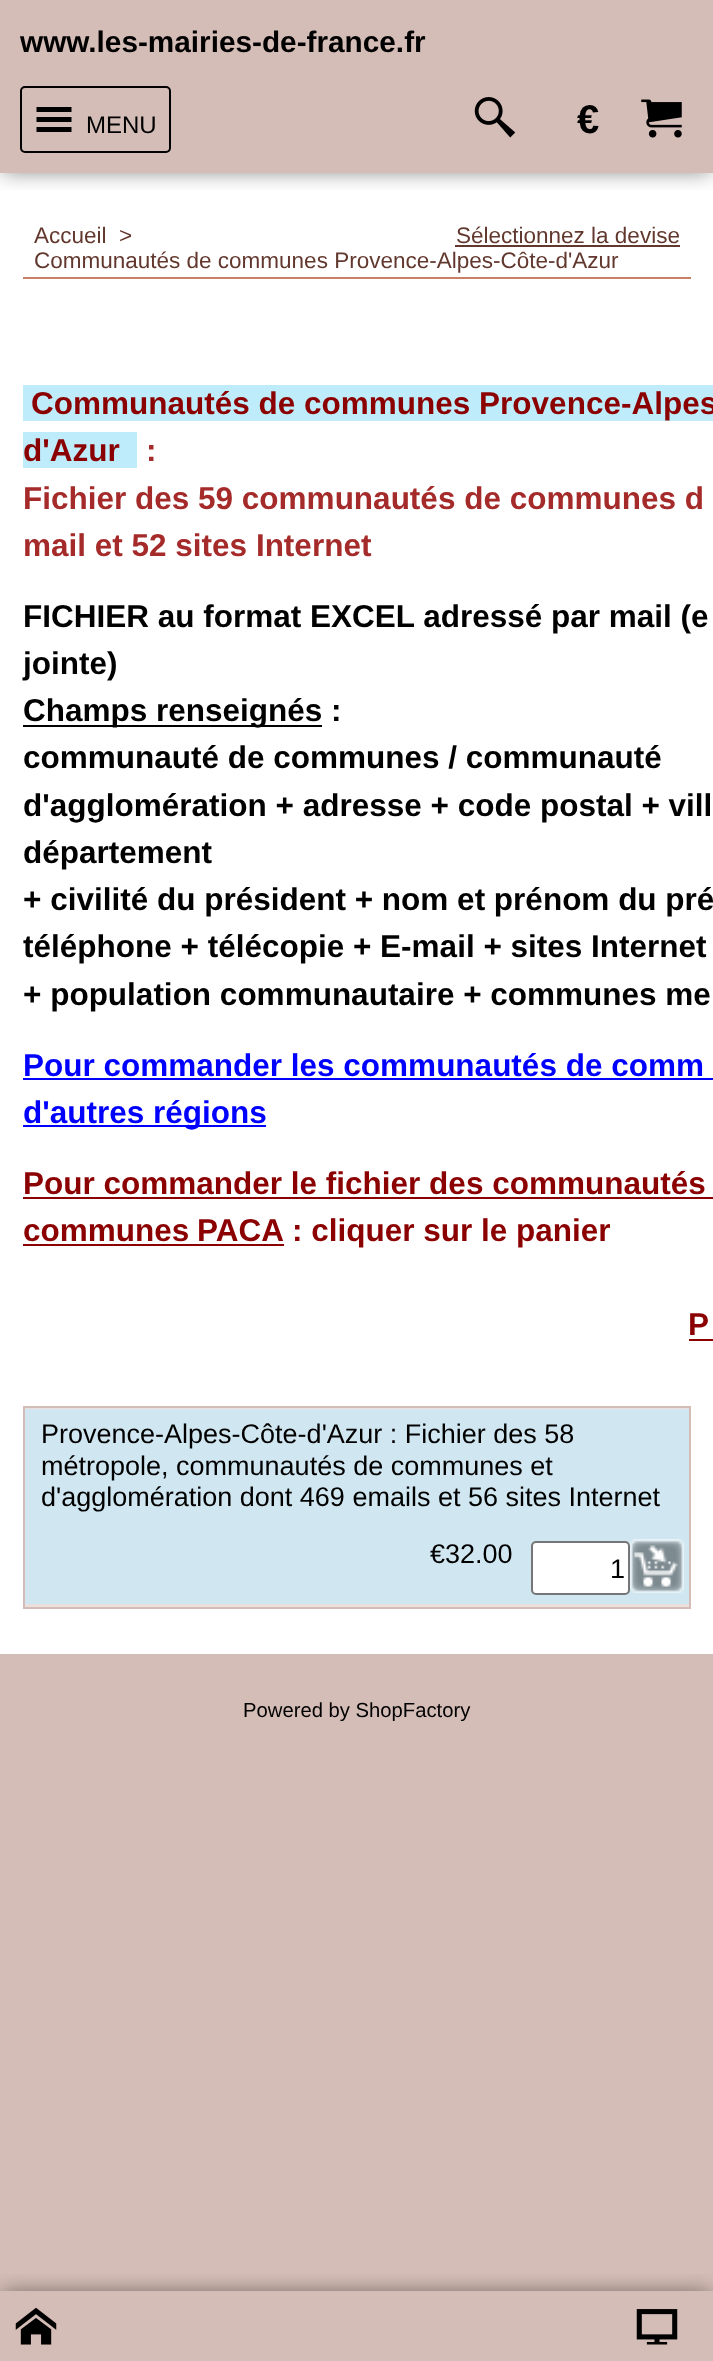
<!DOCTYPE html>
<meta charset="utf-8">
<style>body { margin: 0 } canvas { display: block }</style>
<canvas id="canvas" width="713" height="2361"></canvas>
<img id="img1" src="images/1.png" hidden>
<img id="img2" src="images/2.png" hidden>
<img id="img3" src="images/3.png" hidden>
<img id="img4" src="images/4.png" hidden>
<img id="img5" src="images/5.png" hidden>
<script>
window.onload = function () {
    const canvas = document.getElementById('canvas');
    const context = canvas.getContext('2d');
    context.miterLimit = 4;
    context.fontKerning = 'normal';

    context.fillStyle = 'rgb(213, 189, 183)';
    context.fillRect(0, 0, 713, 2361);
    context.fillStyle = 'rgb(255, 255, 255)';
    context.fillRect(0, 173, 713, 1481);
    context.save();
    context.beginPath();
    context.rect(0, 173, 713, 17);
    context.clip();
    context.fillStyle = 'rgba(0, 0, 0, 0.5)';
    context.filter = 'blur(11px)';
    context.beginPath();
    context.rect(2, 2, 709, 169);
    context.fill();
    context.filter = 'none';
    context.restore();
    context.beginPath();
    context.roundRect(21, 87, 149, 65, 4);
    context.strokeStyle = 'rgb(0, 0, 0)';
    context.lineWidth = 2;
    context.stroke();
    context.fillStyle = 'rgb(0, 0, 0)';
    context.beginPath();
    context.moveTo(36.5, 107);
    context.lineTo(71.5, 107);
    context.lineTo(71.5, 112);
    context.lineTo(36.5, 112);
    context.closePath();
    context.moveTo(36.5, 117);
    context.lineTo(71.5, 117);
    context.lineTo(71.5, 122);
    context.lineTo(36.5, 122);
    context.closePath();
    context.moveTo(36.5, 127);
    context.lineTo(71.5, 127);
    context.lineTo(71.5, 132);
    context.lineTo(36.5, 132);
    context.closePath();
    context.fill();
    context.drawImage(document.getElementById('img1'), 474, 97, 42, 41);
    context.drawImage(document.getElementById('img2'), 641, 99, 41, 39);
    context.fillStyle = 'rgb(201, 128, 100)';
    context.fillRect(23, 277, 668, 2);
    context.fillStyle = 'rgb(98, 56, 46)';
    context.fillRect(455, 245, 225, 2);
    context.fillStyle = 'rgb(191, 236, 251)';
    context.fillRect(23, 385, 690, 36);
    context.fillRect(23, 432, 114, 36);
    context.fillStyle = 'rgb(0, 0, 0)';
    context.fillRect(23, 725, 299, 2);
    context.fillStyle = 'rgb(0, 0, 255)';
    context.fillRect(23, 1078, 690, 2);
    context.fillRect(23, 1125, 243, 2);
    context.fillStyle = 'rgb(139, 0, 0)';
    context.fillRect(23, 1197, 690, 2);
    context.fillRect(23, 1244, 261, 2);
    context.fillRect(689, 1339, 24, 2);
    context.fillStyle = 'rgb(235, 224, 221)';
    context.beginPath();
    context.rect(24, 1407, 666, 201);
    context.fill();
    context.strokeStyle = 'rgb(213, 189, 183)';
    context.stroke();
    context.fillStyle = 'rgb(208, 231, 241)';
    context.fillRect(25, 1409, 664, 195);
    context.fillStyle = 'rgb(255, 255, 255)';
    context.beginPath();
    context.roundRect(532, 1542, 97, 52, 4);
    context.fill();
    context.strokeStyle = 'rgb(118, 118, 118)';
    context.stroke();
    context.drawImage(document.getElementById('img3'), 630, 1539, 54, 54);
    context.save();
    context.beginPath();
    context.rect(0, 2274, 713, 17);
    context.clip();
    context.fillStyle = 'rgba(0, 0, 0, 0.5)';
    context.filter = 'blur(11px)';
    context.beginPath();
    context.rect(2, 2293, 709, 67);
    context.fill();
    context.filter = 'none';
    context.restore();
    context.drawImage(document.getElementById('img4'), 15, 2307, 42, 38);
    context.drawImage(document.getElementById('img5'), 636, 2309, 42, 36);
    context.font = 'bold 29.75px Liberation Sans';
    context.fillStyle = 'rgb(0, 0, 0)';
    context.fillText('www.les-mairies-de-france.fr', 20, 52);
    context.font = '24px Liberation Sans';
    context.fillText('MENU', 86, 133);
    context.font = 'bold 40px Liberation Sans';
    context.fillText('€', 577, 133);
    context.font = '22.5px Liberation Sans';
    context.fillStyle = 'rgb(98, 56, 46)';
    context.fillText('Accueil', 34, 243);
    context.fillText('>', 119, 243);
    context.fillText('Sélectionnez la devise', 456, 243);
    context.fillText('Communautés de communes Provence-Alpes-Côte-d\'Azur', 34, 268);
    context.font = 'bold 31.5px Liberation Sans';
    context.fillStyle = 'rgb(139, 0, 0)';
    context.fillText('Communautés de communes Provence-Alpes', 31, 414);
    context.fillText('d\'Azur', 23, 461);
    context.fillStyle = 'rgb(165, 42, 42)';
    context.fillText(':', 146, 461);
    context.fillText('Fichier des 59 communautés de communes d', 23, 509);
    context.fillText('mail et 52 sites Internet', 23, 556);
    context.fillStyle = 'rgb(0, 0, 0)';
    context.fillText('FICHIER au format EXCEL adressé par mail (e', 23, 627);
    context.fillText('jointe)', 23, 674);
    context.fillText('Champs renseignés :', 23, 721);
    context.fillText('communauté de communes / communauté', 23, 768);
    context.fillText('d\'agglomération + adresse + code postal + vill', 23, 816);
    context.fillText('département', 23, 863);
    context.fillText('+ civilité du président + nom et prénom du pré', 23, 910);
    context.fillText('téléphone + télécopie + E-mail + sites Internet', 23, 957);
    context.fillText('+ population communautaire + communes me', 23, 1005);
    context.fillStyle = 'rgb(0, 0, 255)';
    context.fillText('Pour commander les communautés de comm', 23, 1076);
    context.fillText('d\'autres régions', 23, 1123);
    context.fillStyle = 'rgb(139, 0, 0)';
    context.fillText('Pour commander le fichier des communautés', 23, 1194);
    context.wordSpacing = '-1px';
    context.fillText('communes PACA', 23, 1241);
    context.wordSpacing = '0px';
    context.fillText(': cliquer sur le panier', 292, 1241);
    context.fillText('P', 688, 1335);
    context.font = '27px Liberation Sans';
    context.fillStyle = 'rgb(0, 0, 0)';
    context.fillText('Provence-Alpes-Côte-d\'Azur : Fichier des 58', 41, 1443);
    context.fillText('métropole, communautés de communes et', 41, 1475);
    context.fillText('d\'agglomération dont 469 emails et 56 sites Internet', 41, 1506);
    context.fillText('€32.00', 430, 1563);
    context.fillText('1', 610, 1578);
    context.save();
    context.beginPath();
    context.rect(234, 1699, 248, 22);
    context.clip();
    context.font = '20.25px Liberation Sans';
    context.fillText('Powered by ShopFactory', 243, 1717);
    context.restore();
};
</script>
